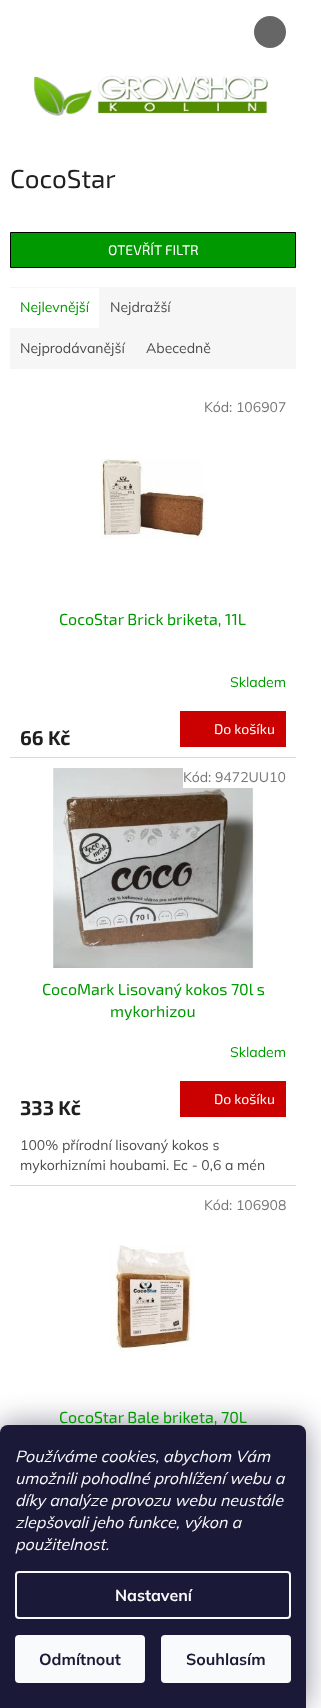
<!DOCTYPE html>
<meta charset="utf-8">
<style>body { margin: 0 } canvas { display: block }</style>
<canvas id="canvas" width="321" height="1708"></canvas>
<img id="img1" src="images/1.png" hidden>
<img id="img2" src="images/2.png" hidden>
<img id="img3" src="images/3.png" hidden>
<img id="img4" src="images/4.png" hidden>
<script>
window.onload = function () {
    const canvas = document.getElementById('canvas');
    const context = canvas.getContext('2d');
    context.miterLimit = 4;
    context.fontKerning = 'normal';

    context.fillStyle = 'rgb(255, 255, 255)';
    context.fillRect(0, 0, 321, 1708);
    context.fillStyle = 'rgb(102, 102, 102)';
    context.beginPath();
    context.arc(270, 32, 16, 0, 2 * Math.PI);
    context.fill();
    context.drawImage(document.getElementById('img1'), 33, 75, 236, 41);
    context.fillStyle = 'rgb(0, 153, 1)';
    context.beginPath();
    context.rect(10.5, 232.5, 285, 35);
    context.fill();
    context.strokeStyle = 'rgb(0, 0, 0)';
    context.stroke();
    context.fillStyle = 'rgb(246, 246, 246)';
    context.fillRect(10, 287, 286, 82);
    context.fillStyle = 'rgb(255, 255, 255)';
    context.fillRect(10, 288, 89, 40);
    context.drawImage(document.getElementById('img2'), 100, 458, 109, 81);
    context.fillStyle = 'rgb(203, 0, 0)';
    context.fillRect(180, 711, 106, 36);
    context.fillStyle = 'rgb(218, 218, 218)';
    context.fillRect(10, 757, 286, 1);
    context.drawImage(document.getElementById('img3'), 53, 768, 203, 200);
    context.fillStyle = 'rgb(255, 255, 255)';
    context.fillRect(183, 768, 71, 20);
    context.fillStyle = 'rgb(203, 0, 0)';
    context.fillRect(180, 1081, 106, 36);
    context.fillStyle = 'rgb(218, 218, 218)';
    context.fillRect(10, 1185, 286, 1);
    context.drawImage(document.getElementById('img4'), 110, 1245, 84, 107);
    context.fillStyle = 'rgba(27, 25, 57, 0.5)';
    context.filter = 'blur(15px)';
    context.beginPath();
    context.roundRect(0, 1425, 306, 283, 8);
    context.fill();
    context.filter = 'none';
    context.font = '26px "Exo 2"';
    context.fillStyle = 'rgb(31, 31, 31)';
    context.fillText('CocoStar', 10, 188);
    context.font = '14px "Exo 2"';
    context.fillStyle = 'rgb(255, 255, 255)';
    context.fillText('OTEVŘÍT FILTR', 108, 255);
    context.font = '14px Mulish';
    context.fillStyle = 'rgb(0, 153, 1)';
    context.fillText('Nejlevnější', 20, 312);
    context.fillStyle = 'rgb(77, 77, 77)';
    context.fillText('Nejdražší', 110, 312);
    context.fillText('Nejprodávanější', 20, 353);
    context.fillText('Abecedně', 146, 353);
    context.fillStyle = 'rgb(118, 118, 118)';
    context.fillText('Kód: 106907', 204, 412);
    context.font = '16px "Exo 2"';
    context.fillStyle = 'rgb(0, 153, 1)';
    context.fillText('CocoStar Brick briketa, 11L', 59, 625);
    context.font = '14px Mulish';
    context.fillText('Skladem', 230, 687);
    context.font = 'bold 20px "Exo 2"';
    context.fillStyle = 'rgb(31, 31, 31)';
    context.fillText('66 Kč', 20, 745);
    context.font = '14px "Exo 2"';
    context.fillStyle = 'rgb(255, 255, 255)';
    context.fillText('Do košíku', 214, 734);
    context.font = '14px Mulish';
    context.fillStyle = 'rgb(118, 118, 118)';
    context.fillText('Kód: 9472UU10', 183, 782);
    context.font = '16px "Exo 2"';
    context.fillStyle = 'rgb(0, 153, 1)';
    context.fillText('CocoMark Lisovaný kokos 70l s', 42, 995);
    context.fillText('mykorhizou', 110, 1017);
    context.font = '14px Mulish';
    context.fillText('Skladem', 230, 1057);
    context.font = 'bold 20px "Exo 2"';
    context.fillStyle = 'rgb(31, 31, 31)';
    context.fillText('333 Kč', 20, 1115);
    context.font = '14px "Exo 2"';
    context.fillStyle = 'rgb(255, 255, 255)';
    context.fillText('Do košíku', 214, 1104);
    context.font = '14px Mulish';
    context.fillStyle = 'rgb(77, 77, 77)';
    context.fillText('100% přírodní lisovaný kokos s', 20, 1150);
    context.fillText('mykorhizními houbami. Ec - 0,6 a mén', 20, 1170);
    context.fillStyle = 'rgb(118, 118, 118)';
    context.fillText('Kód: 106908', 204, 1210);
    context.font = '16px "Exo 2"';
    context.fillStyle = 'rgb(0, 153, 1)';
    context.fillText('CocoStar Bale briketa, 70L', 59, 1423);
    context.fillStyle = 'rgb(26, 25, 55)';
    context.beginPath();
    context.roundRect(0, 1425, 306, 283, [8, 8, 0, 0]);
    context.fill();
    context.font = 'italic 16px Mulish';
    context.fillStyle = 'rgb(248, 250, 251)';
    context.fillText('Používáme cookies, abychom Vám', 15, 1462);
    context.fillText('umožnili pohodlné prohlížení webu a', 15, 1484);
    context.fillText('díky analýze provozu webu neustále', 15, 1506);
    context.fillText('zlepšovali jeho funkce, výkon a', 15, 1528);
    context.fillText('použitelnost.', 15, 1550);
    context.beginPath();
    context.roundRect(16, 1572, 274, 46, 3);
    context.strokeStyle = 'rgb(248, 250, 251)';
    context.lineWidth = 2;
    context.stroke();
    context.font = 'bold 16px Mulish';
    context.fillText('Nastavení', 115, 1601);
    context.beginPath();
    context.roundRect(15, 1635, 130, 48, 4);
    context.fill();
    context.fillStyle = 'rgb(26, 25, 55)';
    context.fillText('Odmítnout', 39, 1665);
    context.fillStyle = 'rgb(248, 250, 251)';
    context.beginPath();
    context.roundRect(161, 1635, 130, 48, 4);
    context.fill();
    context.fillStyle = 'rgb(26, 25, 55)';
    context.fillText('Souhlasím', 186, 1665);
};
</script>
